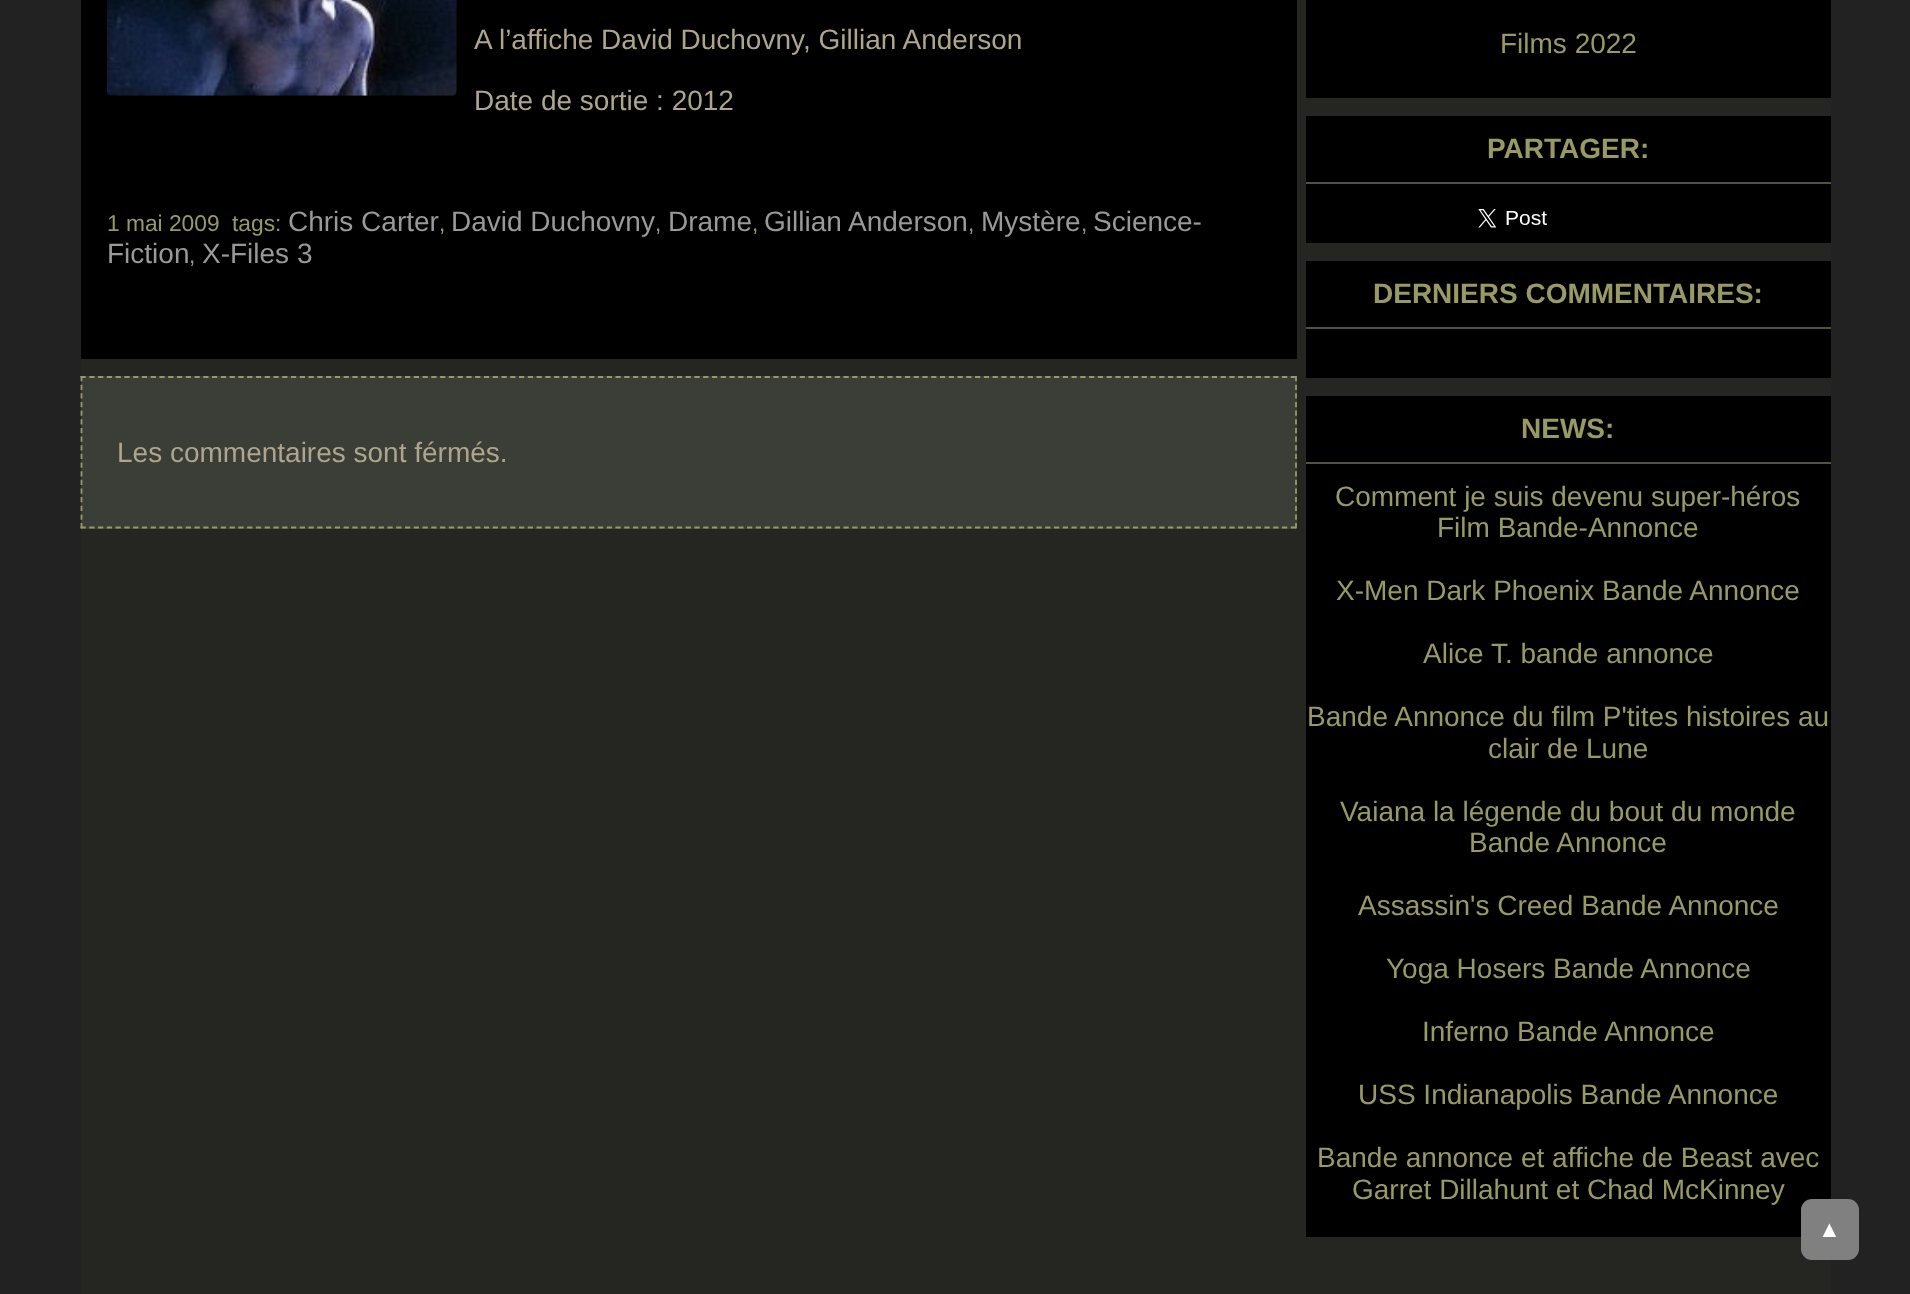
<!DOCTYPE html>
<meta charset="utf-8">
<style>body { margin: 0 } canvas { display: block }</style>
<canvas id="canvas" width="1910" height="1294"></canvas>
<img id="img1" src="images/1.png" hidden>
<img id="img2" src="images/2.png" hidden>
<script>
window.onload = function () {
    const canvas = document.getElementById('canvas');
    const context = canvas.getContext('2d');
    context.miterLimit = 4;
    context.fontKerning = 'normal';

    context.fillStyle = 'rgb(34, 34, 34)';
    context.fillRect(0, 0, 1910, 1294);
    context.fillStyle = 'rgb(37, 38, 34)';
    context.fillRect(81, 0, 1750, 1294);
    context.fillStyle = 'rgb(0, 0, 0)';
    context.fillRect(81, 0, 1216, 359);
    context.drawImage(document.getElementById('img1'), 107, 0, 350, 96);
    context.fillStyle = 'rgb(59, 61, 55)';
    context.fillRect(81, 376, 1216, 153);
    context.beginPath();
    context.moveTo(80.5, 377);
    context.lineTo(1297, 377);
    context.strokeStyle = 'rgb(153, 153, 102)';
    context.lineWidth = 1.8;
    context.setLineDash([5.25, 3.52]);
    context.stroke();
    context.beginPath();
    context.moveTo(1296, 376);
    context.lineTo(1296, 528.5);
    context.setLineDash([5.25, 3.4]);
    context.stroke();
    context.beginPath();
    context.moveTo(80.5, 527.5);
    context.lineTo(1297, 527.5);
    context.setLineDash([5.25, 3.52]);
    context.stroke();
    context.beginPath();
    context.moveTo(81.5, 376);
    context.lineTo(81.5, 528.5);
    context.setLineDash([5.25, 3.4]);
    context.stroke();
    context.fillStyle = 'rgb(0, 0, 0)';
    context.fillRect(1306, 0, 525, 98);
    context.fillRect(1306, 116, 525, 127);
    context.fillStyle = 'rgb(81, 81, 68)';
    context.fillRect(1306, 182, 525, 2);
    context.drawImage(document.getElementById('img2'), 1478, 209, 69, 19);
    context.fillStyle = 'rgb(0, 0, 0)';
    context.fillRect(1306, 261, 525, 117);
    context.fillStyle = 'rgb(81, 81, 68)';
    context.fillRect(1306, 327, 525, 2);
    context.fillStyle = 'rgb(0, 0, 0)';
    context.fillRect(1306, 396, 525, 841);
    context.fillStyle = 'rgb(81, 81, 68)';
    context.fillRect(1306, 462, 525, 2);
    context.fillStyle = 'rgb(128, 128, 128)';
    context.beginPath();
    context.roundRect(1801, 1199, 58, 61, 11);
    context.fill();
    context.font = '28px Liberation Sans';
    context.fillStyle = 'rgb(174, 165, 140)';
    context.fillText('A l’affiche David Duchovny, Gillian Anderson', 474, 49);
    context.fillText('Date de sortie : 2012', 474, 110);
    context.font = '22.75px Liberation Sans';
    context.fillStyle = 'rgb(153, 153, 102)';
    context.fillText('1 mai 2009', 107, 231);
    context.fillText('tags:', 232, 231);
    context.font = '28px Liberation Sans';
    context.fillStyle = 'rgb(153, 153, 153)';
    context.fillText('Chris Carter', 288, 231);
    context.font = '22.75px Liberation Sans';
    context.fillStyle = 'rgb(153, 153, 102)';
    context.fillText(',', 439, 231);
    context.font = '28px Liberation Sans';
    context.fillStyle = 'rgb(153, 153, 153)';
    context.fillText('David Duchovny', 451, 231);
    context.font = '22.75px Liberation Sans';
    context.fillStyle = 'rgb(153, 153, 102)';
    context.fillText(',', 655, 231);
    context.font = '28px Liberation Sans';
    context.fillStyle = 'rgb(153, 153, 153)';
    context.fillText('Drame', 668, 231);
    context.font = '22.75px Liberation Sans';
    context.fillStyle = 'rgb(153, 153, 102)';
    context.fillText(',', 752, 231);
    context.font = '28px Liberation Sans';
    context.fillStyle = 'rgb(153, 153, 153)';
    context.fillText('Gillian Anderson', 764, 231);
    context.font = '22.75px Liberation Sans';
    context.fillStyle = 'rgb(153, 153, 102)';
    context.fillText(',', 968, 231);
    context.font = '28px Liberation Sans';
    context.fillStyle = 'rgb(153, 153, 153)';
    context.fillText('Mystère', 981, 231);
    context.font = '22.75px Liberation Sans';
    context.fillStyle = 'rgb(153, 153, 102)';
    context.fillText(',', 1081, 231);
    context.font = '28px Liberation Sans';
    context.fillStyle = 'rgb(153, 153, 153)';
    context.fillText('Science-', 1093, 231);
    context.fillText('Fiction', 107, 263);
    context.font = '22.75px Liberation Sans';
    context.fillStyle = 'rgb(153, 153, 102)';
    context.fillText(',', 189, 263);
    context.font = '28px Liberation Sans';
    context.fillStyle = 'rgb(153, 153, 153)';
    context.fillText('X-Files 3', 202, 263);
    context.fillStyle = 'rgb(174, 165, 140)';
    context.fillText('Les commentaires sont férmés.', 117, 462);
    context.fillStyle = 'rgb(153, 153, 102)';
    context.fillText('Films 2022', 1500, 53);
    context.font = 'bold 28px Liberation Sans';
    context.fillText('PARTAGER:', 1487, 158);
    context.fillText('DERNIERS COMMENTAIRES:', 1373, 303);
    context.fillText('NEWS:', 1521, 438);
    context.font = '28px Liberation Sans';
    context.fillText('Comment je suis devenu super-héros', 1335, 506);
    context.fillText('Film Bande-Annonce', 1437, 537);
    context.fillText('X-Men Dark Phoenix Bande Annonce', 1336, 600);
    context.fillText('Alice T. bande annonce', 1423, 663);
    context.fillText('Bande Annonce du film P\'tites histoires au', 1307, 726);
    context.fillText('clair de Lune', 1488, 758);
    context.fillText('Vaiana la légende du bout du monde', 1340, 821);
    context.fillText('Bande Annonce', 1469, 852);
    context.fillText('Assassin\'s Creed Bande Annonce', 1358, 915);
    context.fillText('Yoga Hosers Bande Annonce', 1386, 978);
    context.fillText('Inferno Bande Annonce', 1422, 1041);
    context.fillText('USS Indianapolis Bande Annonce', 1358, 1104);
    context.fillText('Bande annonce et affiche de Beast avec', 1317, 1167);
    context.fillText('Garret Dillahunt et Chad McKinney', 1352, 1199);
    context.font = '23px Liberation Sans';
    context.fillStyle = 'rgb(255, 255, 255)';
    context.fillText('▲', 1818, 1237);
};
</script>
